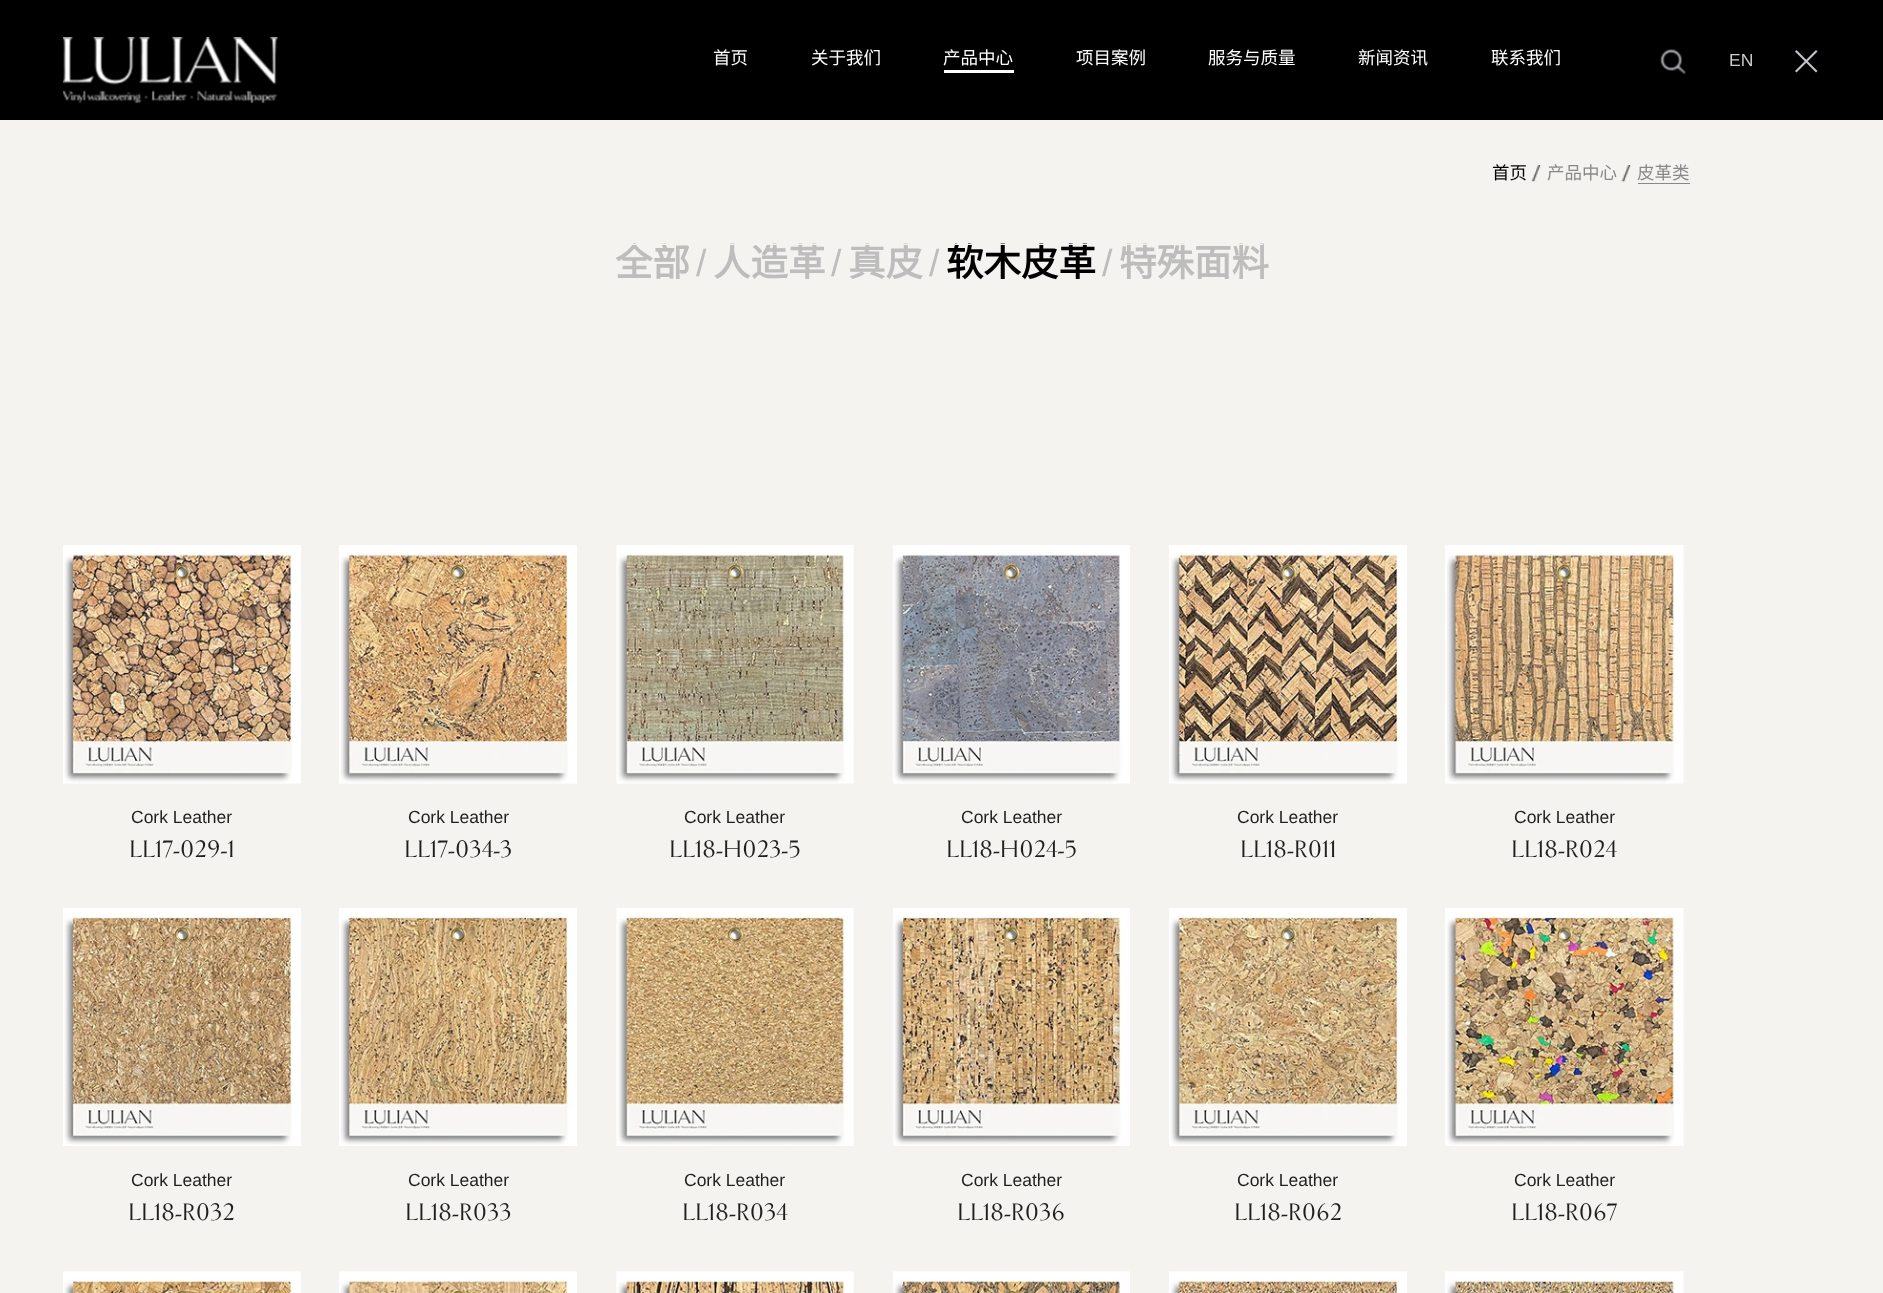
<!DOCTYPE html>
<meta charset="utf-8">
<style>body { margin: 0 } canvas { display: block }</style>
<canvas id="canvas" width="1883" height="1293"></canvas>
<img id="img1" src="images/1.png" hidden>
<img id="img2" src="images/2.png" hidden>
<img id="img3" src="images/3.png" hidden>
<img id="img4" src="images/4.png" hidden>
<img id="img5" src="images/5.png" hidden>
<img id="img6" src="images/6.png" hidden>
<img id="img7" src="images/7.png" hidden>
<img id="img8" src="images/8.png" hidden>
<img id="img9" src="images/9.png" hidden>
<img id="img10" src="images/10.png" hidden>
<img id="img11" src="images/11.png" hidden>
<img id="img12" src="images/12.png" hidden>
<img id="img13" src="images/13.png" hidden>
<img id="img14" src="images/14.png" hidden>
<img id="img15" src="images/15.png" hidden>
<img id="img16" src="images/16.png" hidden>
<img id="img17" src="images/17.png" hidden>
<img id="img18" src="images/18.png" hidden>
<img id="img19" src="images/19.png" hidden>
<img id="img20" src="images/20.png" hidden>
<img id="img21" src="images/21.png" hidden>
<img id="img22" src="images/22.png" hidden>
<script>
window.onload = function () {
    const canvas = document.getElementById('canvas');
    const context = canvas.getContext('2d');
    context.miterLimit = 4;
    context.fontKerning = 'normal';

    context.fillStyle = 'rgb(245, 243, 240)';
    context.fillRect(0, 0, 1883, 1293);
    context.fillStyle = 'rgb(0, 0, 0)';
    context.fillRect(0, 0, 1883, 120);
    context.drawImage(document.getElementById('img1'), 63, 37, 216, 67);
    context.fillStyle = 'rgb(255, 255, 255)';
    context.fillRect(944, 70, 70, 3);
    context.drawImage(document.getElementById('img2'), 1660, 49, 26, 26);
    context.fillStyle = 'rgb(196, 196, 204)';
    context.beginPath();
    context.moveTo(1795, 71);
    context.lineTo(1816, 50);
    context.lineTo(1817.5, 51.5);
    context.lineTo(1796.5, 72.5);
    context.closePath();
    context.fill();
    context.beginPath();
    context.moveTo(1796.5, 50);
    context.lineTo(1817.5, 71);
    context.lineTo(1816, 72.5);
    context.lineTo(1795, 51.5);
    context.closePath();
    context.fill();
    context.drawImage(document.getElementById('img3'), 1531, 165, 10, 17);
    context.drawImage(document.getElementById('img4'), 1621, 165, 10, 17);
    context.fillStyle = 'rgb(136, 136, 136)';
    context.fillRect(1638, 183, 52, 1);
    context.drawImage(document.getElementById('img5'), 63, 545, 238, 239);
    context.drawImage(document.getElementById('img6'), 339, 545, 238, 239);
    context.drawImage(document.getElementById('img7'), 616, 545, 238, 239);
    context.drawImage(document.getElementById('img8'), 893, 545, 237, 239);
    context.drawImage(document.getElementById('img9'), 1169, 545, 238, 239);
    context.drawImage(document.getElementById('img10'), 1445, 545, 239, 239);
    context.drawImage(document.getElementById('img11'), 63, 908, 238, 238);
    context.drawImage(document.getElementById('img12'), 339, 908, 238, 238);
    context.drawImage(document.getElementById('img13'), 616, 908, 238, 238);
    context.drawImage(document.getElementById('img14'), 893, 908, 237, 238);
    context.drawImage(document.getElementById('img15'), 1169, 908, 238, 238);
    context.drawImage(document.getElementById('img16'), 1445, 908, 239, 238);
    context.drawImage(document.getElementById('img17'), 63, 1271, 238, 22);
    context.drawImage(document.getElementById('img18'), 339, 1271, 238, 22);
    context.drawImage(document.getElementById('img19'), 616, 1271, 238, 22);
    context.drawImage(document.getElementById('img20'), 893, 1271, 237, 22);
    context.drawImage(document.getElementById('img21'), 1169, 1271, 238, 22);
    context.drawImage(document.getElementById('img22'), 1445, 1271, 239, 22);
    context.font = '17.5px Noto Sans CJK SC';
    context.fillStyle = 'rgb(255, 255, 255)';
    context.fillText('首页', 713, 64);
    context.fillText('关于我们', 811, 64);
    context.fillText('产品中心', 943, 64);
    context.fillText('项目案例', 1076, 64);
    context.fillText('服务与质量', 1208, 64);
    context.fillText('新闻资讯', 1358, 64);
    context.fillText('联系我们', 1491, 64);
    context.font = '17.5px Liberation Sans';
    context.fillStyle = 'rgb(204, 204, 204)';
    context.fillText('EN', 1729, 66);
    context.font = '17.5px Noto Sans CJK SC';
    context.fillStyle = 'rgb(0, 0, 0)';
    context.fillText('首页', 1492, 179);
    context.fillStyle = 'rgb(136, 136, 136)';
    context.fillText('产品中心', 1547, 179);
    context.fillText('皮革类', 1637, 179);
    context.font = 'bold 37.5px Noto Sans CJK SC';
    context.fillStyle = 'rgb(189, 189, 189)';
    context.fillText('全部', 615, 276);
    context.font = '37.5px Liberation Sans';
    context.fillText('/', 696, 276);
    context.font = 'bold 37.5px Noto Sans CJK SC';
    context.fillText('人造革', 713, 276);
    context.font = '37.5px Liberation Sans';
    context.fillText('/', 831, 276);
    context.font = 'bold 37.5px Noto Sans CJK SC';
    context.fillText('真皮', 848, 276);
    context.font = '37.5px Liberation Sans';
    context.fillText('/', 929, 276);
    context.font = 'bold 37.5px Noto Sans CJK SC';
    context.fillStyle = 'rgb(0, 0, 0)';
    context.fillText('软木皮革', 946, 276);
    context.font = '37.5px Liberation Sans';
    context.fillStyle = 'rgb(189, 189, 189)';
    context.fillText('/', 1102, 276);
    context.font = 'bold 37.5px Noto Sans CJK SC';
    context.fillText('特殊面料', 1119, 276);
    context.fillStyle = 'rgb(245, 243, 240)';
    context.fillRect(632, 244, 631, 1);
    context.font = '17.5px Liberation Sans';
    context.fillStyle = 'rgb(31, 31, 31)';
    context.fillText('Cork Leather', 131, 823);
    context.font = '25px "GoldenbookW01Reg"';
    context.fillText('LL17-029-1', 129, 857);
    context.font = '17.5px Liberation Sans';
    context.fillText('Cork Leather', 408, 823);
    context.font = '25px "GoldenbookW01Reg"';
    context.fillText('LL17-034-3', 404, 857);
    context.font = '17.5px Liberation Sans';
    context.fillText('Cork Leather', 684, 823);
    context.font = '25px "GoldenbookW01Reg"';
    context.fillText('LL18-H023-5', 669, 857);
    context.font = '17.5px Liberation Sans';
    context.fillText('Cork Leather', 961, 823);
    context.font = '25px "GoldenbookW01Reg"';
    context.fillText('LL18-H024-5', 946, 857);
    context.font = '17.5px Liberation Sans';
    context.fillText('Cork Leather', 1237, 823);
    context.font = '25px "GoldenbookW01Reg"';
    context.fillText('LL18-R011', 1240, 857);
    context.font = '17.5px Liberation Sans';
    context.fillText('Cork Leather', 1514, 823);
    context.font = '25px "GoldenbookW01Reg"';
    context.fillText('LL18-R024', 1511, 857);
    context.font = '17.5px Liberation Sans';
    context.fillText('Cork Leather', 131, 1186);
    context.font = '25px "GoldenbookW01Reg"';
    context.fillText('LL18-R032', 128, 1220);
    context.font = '17.5px Liberation Sans';
    context.fillText('Cork Leather', 408, 1186);
    context.font = '25px "GoldenbookW01Reg"';
    context.fillText('LL18-R033', 405, 1220);
    context.font = '17.5px Liberation Sans';
    context.fillText('Cork Leather', 684, 1186);
    context.font = '25px "GoldenbookW01Reg"';
    context.fillText('LL18-R034', 682, 1220);
    context.font = '17.5px Liberation Sans';
    context.fillText('Cork Leather', 961, 1186);
    context.font = '25px "GoldenbookW01Reg"';
    context.fillText('LL18-R036', 957, 1220);
    context.font = '17.5px Liberation Sans';
    context.fillText('Cork Leather', 1237, 1186);
    context.font = '25px "GoldenbookW01Reg"';
    context.fillText('LL18-R062', 1234, 1220);
    context.font = '17.5px Liberation Sans';
    context.fillText('Cork Leather', 1514, 1186);
    context.font = '25px "GoldenbookW01Reg"';
    context.fillText('LL18-R067', 1511, 1220);
};
</script>
